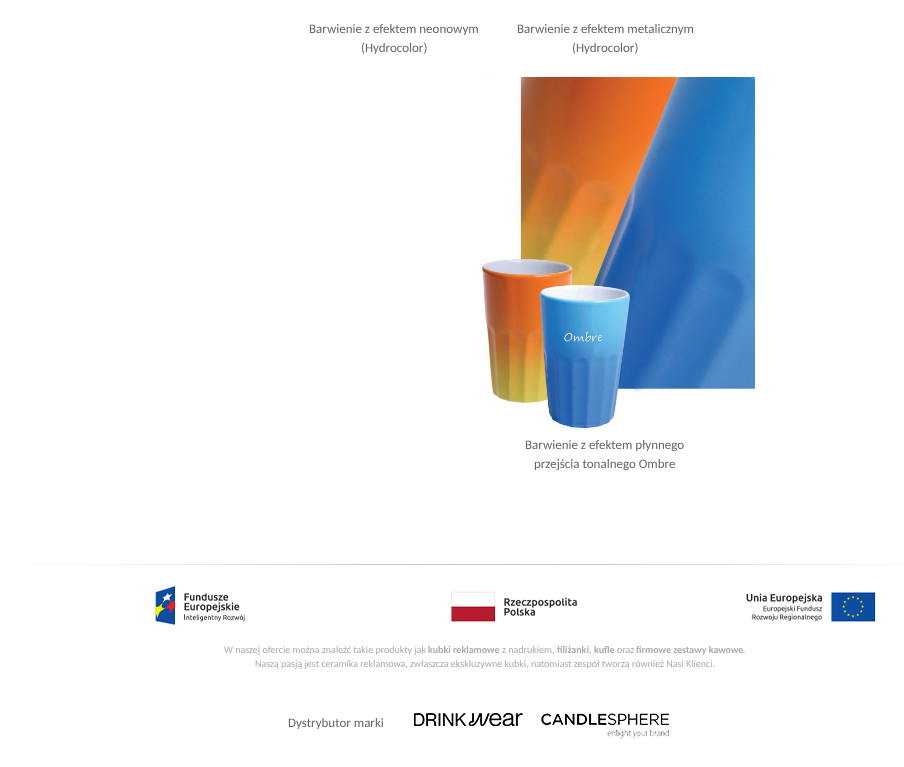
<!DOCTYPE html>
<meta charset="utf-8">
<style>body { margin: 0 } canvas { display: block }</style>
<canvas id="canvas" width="904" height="767"></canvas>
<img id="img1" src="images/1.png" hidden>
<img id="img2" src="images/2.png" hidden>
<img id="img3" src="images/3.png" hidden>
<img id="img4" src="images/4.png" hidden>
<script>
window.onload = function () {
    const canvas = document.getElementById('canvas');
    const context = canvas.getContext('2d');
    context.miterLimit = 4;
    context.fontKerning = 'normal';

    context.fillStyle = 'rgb(255, 255, 255)';
    context.fillRect(0, 0, 904, 767);
    context.drawImage(document.getElementById('img1'), 480, 77, 275, 354);
    context.drawImage(document.getElementById('img2'), 29, 564, 875, 1);
    context.drawImage(document.getElementById('img3'), 155, 586, 721, 39);
    context.drawImage(document.getElementById('img4'), 414, 713, 255, 26);
    context.font = '13px Carlito';
    context.fillStyle = 'rgb(102, 102, 102)';
    context.fillText('Barwienie z efektem neonowym', 309, 33);
    context.fillText('(Hydrocolor)', 361, 52);
    context.fillText('Barwienie z efektem metalicznym', 517, 33);
    context.fillText('(Hydrocolor)', 572, 52);
    context.fillText('Barwienie z efektem płynnego', 525, 449);
    context.fillText('przejścia tonalnego Ombre', 534, 468);
    context.font = '10px Carlito';
    context.fillStyle = 'rgb(170, 170, 170)';
    context.fillText('W naszej ofercie można znaleźć takie produkty jak', 224, 653);
    context.font = 'bold 10px Carlito';
    context.fillText('kubki reklamowe', 428, 653);
    context.font = '10px Carlito';
    context.fillText('z nadrukiem,', 502, 653);
    context.font = 'bold 10px Carlito';
    context.fillText('filiżanki', 557, 653);
    context.font = '10px Carlito';
    context.fillText(',', 589, 653);
    context.font = 'bold 10px Carlito';
    context.fillText('kufle', 594, 653);
    context.font = '10px Carlito';
    context.fillText('oraz', 617, 653);
    context.font = 'bold 10px Carlito';
    context.fillText('firmowe zestawy kawowe', 636, 653);
    context.font = '10px Carlito';
    context.fillText('.', 743, 653);
    context.fillText('Naszą pasją jest ceramika reklamowa, zwłaszcza ekskluzywne kubki, natomiast zespół tworzą również Nasi Klienci.', 255, 667);
    context.font = '13px Carlito';
    context.fillStyle = 'rgb(102, 102, 102)';
    context.fillText('Dystrybutor marki', 288, 727);
};
</script>
